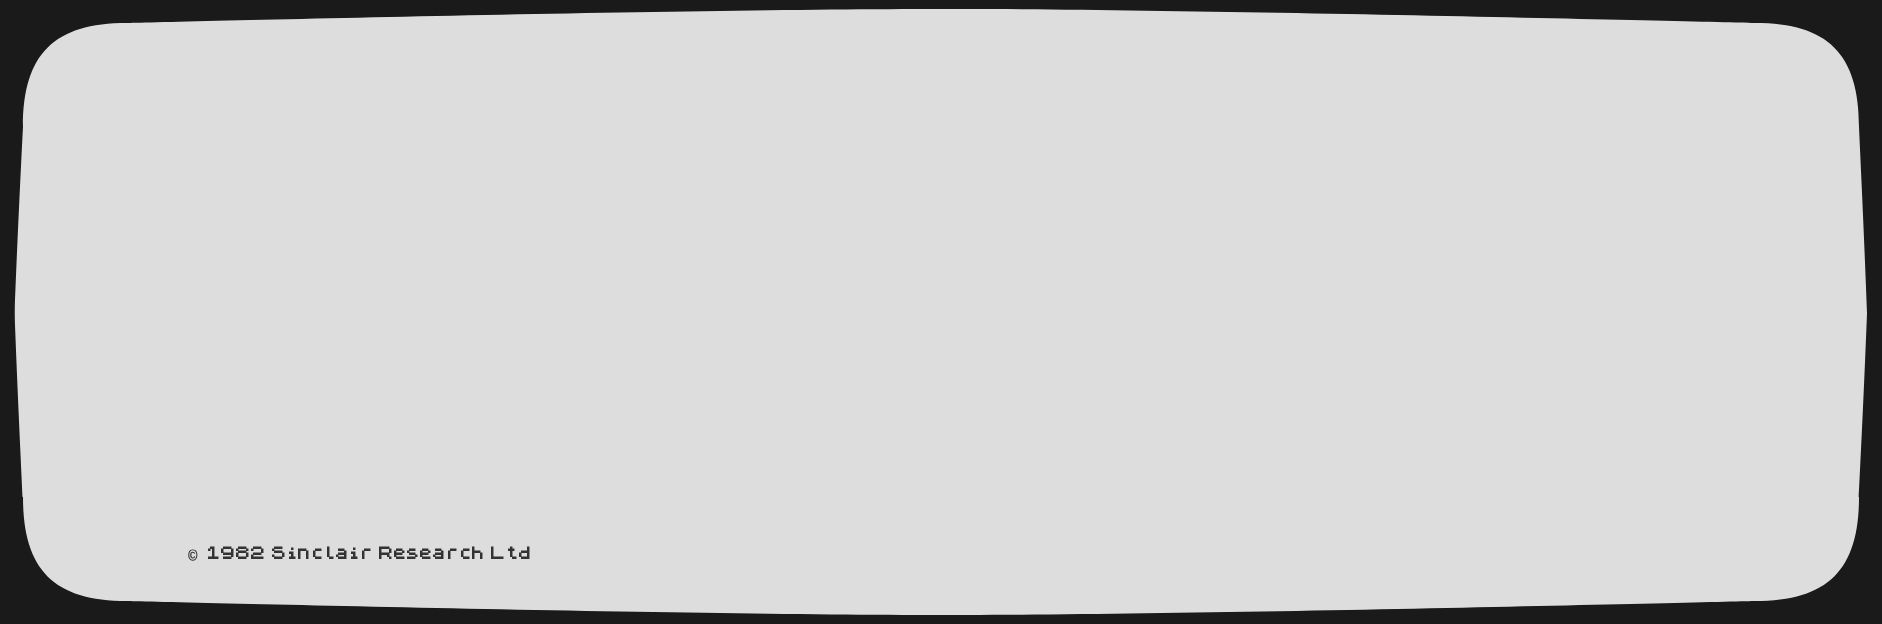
<!DOCTYPE html>
<meta charset="utf-8">
<style>body { margin: 0 } canvas { display: block }</style>
<canvas id="canvas" width="1882" height="624"></canvas>
<script>
window.onload = function () {
    const canvas = document.getElementById('canvas');
    const context = canvas.getContext('2d');
    context.miterLimit = 4;
    context.fontKerning = 'normal';

    context.fillStyle = 'rgb(221, 221, 221)';
    context.fillRect(0, 0, 1882, 624);
    context.font = 'bold 16px Liberation Mono';
    context.fillStyle = 'rgb(51, 51, 51)';
    context.fillText('©', 188, 561);
    context.font = 'bold 16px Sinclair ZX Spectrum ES';
    context.fillText('1982 Sinclair Research Ltd', 204, 561);
    context.fillStyle = 'rgb(26, 26, 26)';
    context.beginPath();
    context.moveTo(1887, 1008);
    context.lineTo(1877, 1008);
    context.bezierCurveTo(1881, 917, 1873, 607, 1873, 527);
    context.bezierCurveTo(1873, 403, 1859, 127, 1859, 127);
    context.bezierCurveTo(1859, 54, 1828, 23, 1755, 23);
    context.bezierCurveTo(1755, 23, 1203, 9, 941, 9);
    context.bezierCurveTo(679, 9, 127, 23, 127, 23);
    context.bezierCurveTo(54, 23, 23, 54, 23, 127);
    context.bezierCurveTo(23, 127, 9, 403, 9, 527);
    context.bezierCurveTo(9, 607, -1, 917, 3, 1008);
    context.lineTo(-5, 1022);
    context.lineTo(-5, -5);
    context.lineTo(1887, -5);
    context.closePath();
    context.fill();
    context.beginPath();
    context.moveTo(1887, -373);
    context.lineTo(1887, 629);
    context.lineTo(-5, 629);
    context.lineTo(-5, -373);
    context.lineTo(5, -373);
    context.bezierCurveTo(1, -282, 9, 16, 9, 97);
    context.bezierCurveTo(9, 221, 23, 497, 23, 497);
    context.bezierCurveTo(23, 570, 54, 601, 127, 601);
    context.bezierCurveTo(127, 601, 680, 615, 941, 615);
    context.bezierCurveTo(1203, 615, 1755, 601, 1755, 601);
    context.bezierCurveTo(1828, 601, 1859, 570, 1859, 497);
    context.bezierCurveTo(1859, 497, 1873, 221, 1873, 97);
    context.bezierCurveTo(1873, 16, 1881, -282, 1877, -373);
    context.closePath();
    context.fill();
};
</script>
